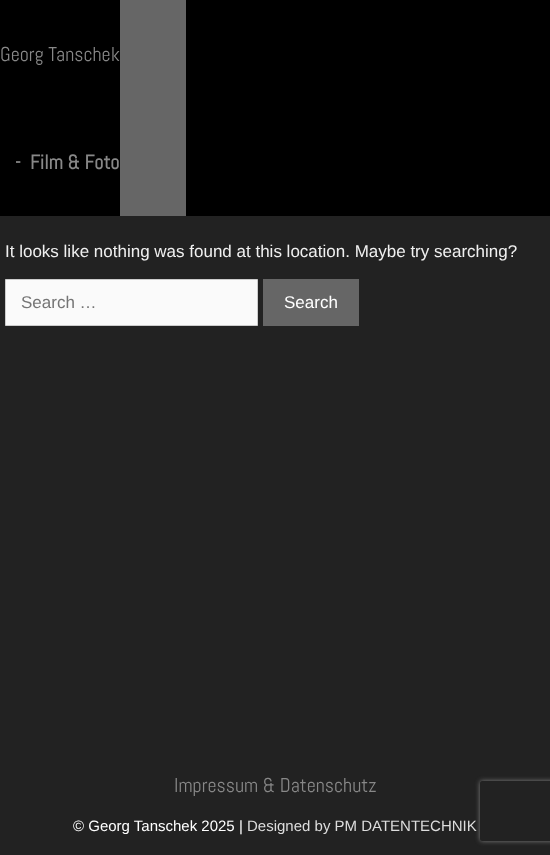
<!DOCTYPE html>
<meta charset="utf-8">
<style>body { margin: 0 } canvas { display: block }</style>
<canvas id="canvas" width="550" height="855"></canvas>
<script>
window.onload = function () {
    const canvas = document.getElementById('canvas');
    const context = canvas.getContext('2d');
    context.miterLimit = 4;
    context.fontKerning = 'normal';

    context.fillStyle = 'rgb(34, 34, 34)';
    context.fillRect(0, 0, 550, 855);
    context.fillStyle = 'rgb(0, 0, 0)';
    context.fillRect(0, 0, 550, 216);
    context.fillStyle = 'rgb(102, 102, 102)';
    context.fillRect(120, 0, 66, 216);
    context.fillStyle = 'rgb(250, 250, 250)';
    context.beginPath();
    context.rect(5.5, 279.5, 252, 46);
    context.fill();
    context.strokeStyle = 'rgb(204, 204, 204)';
    context.stroke();
    context.fillStyle = 'rgb(102, 102, 102)';
    context.fillRect(263, 279, 96, 47);
    context.save();
    context.beginPath();
    context.moveTo(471, 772);
    context.lineTo(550, 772);
    context.lineTo(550, 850);
    context.lineTo(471, 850);
    context.closePath();
    context.moveTo(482, 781);
    context.lineTo(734, 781);
    context.bezierCurveTo(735, 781, 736, 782, 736, 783);
    context.lineTo(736, 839);
    context.bezierCurveTo(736, 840, 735, 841, 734, 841);
    context.lineTo(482, 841);
    context.bezierCurveTo(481, 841, 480, 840, 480, 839);
    context.lineTo(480, 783);
    context.bezierCurveTo(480, 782, 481, 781, 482, 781);
    context.closePath();
    context.clip('evenodd');
    context.fillStyle = 'rgb(128, 128, 128)';
    context.filter = 'blur(2.5px)';
    context.beginPath();
    context.roundRect(480, 781, 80, 60, 2);
    context.fill();
    context.filter = 'none';
    context.restore();
    context.font = '20px Abel';
    context.fillStyle = 'rgb(136, 136, 136)';
    context.fillText('Georg Tanschek', 0, 61);
    context.font = 'bold 20px Abel';
    context.fillText('-  Film & Foto', 15, 169);
    context.font = '17px Liberation Sans';
    context.fillStyle = 'rgb(240, 240, 240)';
    context.fillText('It looks like nothing was found at this location. Maybe try searching?', 5, 257);
    context.fillStyle = 'rgb(117, 117, 117)';
    context.fillText('Search …', 21, 308);
    context.fillStyle = 'rgb(255, 255, 255)';
    context.fillText('Search', 284, 308);
    context.font = '20px Abel';
    context.fillStyle = 'rgb(136, 136, 136)';
    context.fillText('Impressum & Datenschutz', 174, 792);
    context.font = '15px Liberation Sans';
    context.fillStyle = 'rgb(255, 255, 255)';
    context.fillText('© Georg Tanschek 2025 |', 73, 831);
    context.fillStyle = 'rgb(221, 221, 221)';
    context.fillText('Designed by PM DATENTECHNIK', 247, 831);
};
</script>
